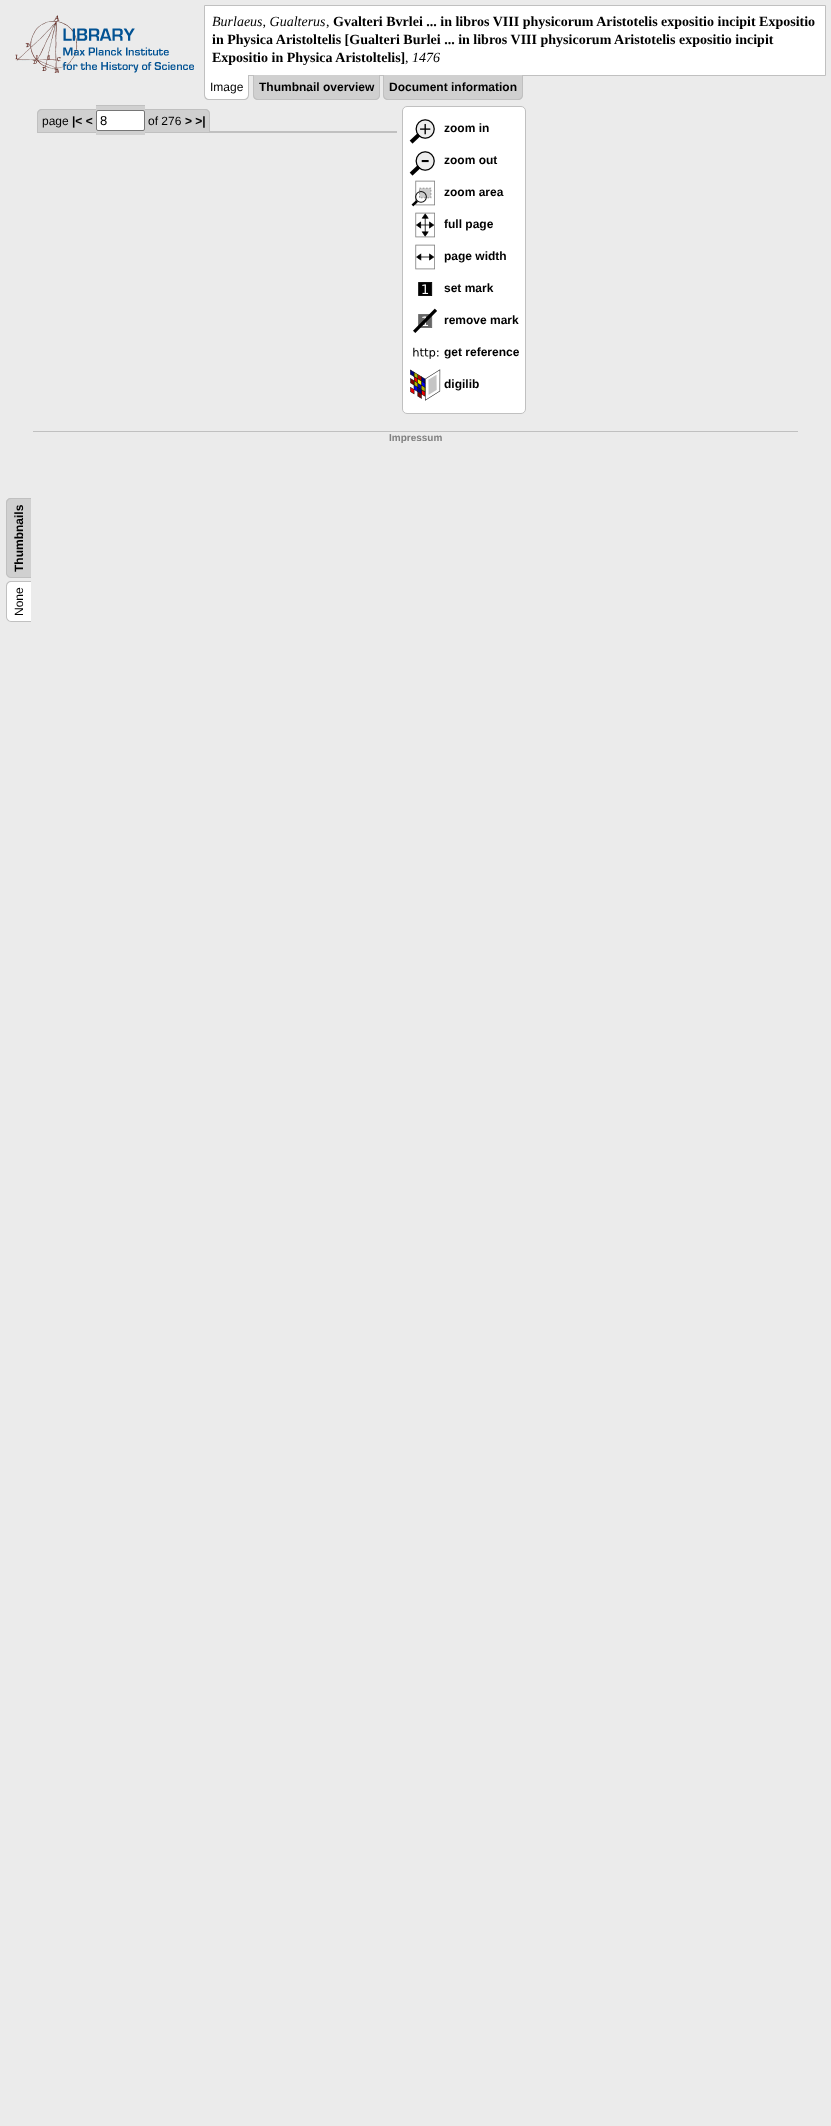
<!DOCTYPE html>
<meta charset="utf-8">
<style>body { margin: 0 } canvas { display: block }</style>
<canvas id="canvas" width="831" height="2126"></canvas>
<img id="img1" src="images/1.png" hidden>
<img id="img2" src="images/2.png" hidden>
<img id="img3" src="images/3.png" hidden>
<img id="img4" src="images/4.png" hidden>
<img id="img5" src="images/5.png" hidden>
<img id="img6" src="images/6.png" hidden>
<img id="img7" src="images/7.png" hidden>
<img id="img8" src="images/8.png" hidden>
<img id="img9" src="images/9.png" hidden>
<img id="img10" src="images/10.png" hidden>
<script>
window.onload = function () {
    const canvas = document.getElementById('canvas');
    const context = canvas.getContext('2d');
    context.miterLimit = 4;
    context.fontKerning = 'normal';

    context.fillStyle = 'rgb(235, 235, 235)';
    context.fillRect(0, 0, 831, 2126);
    context.drawImage(document.getElementById('img1'), 15, 15, 179, 58);
    context.fillStyle = 'rgb(255, 255, 255)';
    context.beginPath();
    context.rect(204.5, 5.5, 621, 70);
    context.fill();
    context.strokeStyle = 'rgb(192, 192, 192)';
    context.stroke();
    context.beginPath();
    context.roundRect(204, 75, 45, 25, [0, 0, 5, 5]);
    context.fill();
    context.fillStyle = 'rgb(192, 192, 192)';
    context.beginPath();
    context.moveTo(204, 75);
    context.lineTo(249, 75);
    context.lineTo(249, 95);
    context.bezierCurveTo(249, 98, 247, 100, 244, 100);
    context.lineTo(209, 100);
    context.bezierCurveTo(206, 100, 204, 98, 204, 95);
    context.closePath();
    context.moveTo(205, 75);
    context.lineTo(248, 75);
    context.lineTo(248, 95);
    context.bezierCurveTo(248, 97, 246, 99, 244, 99);
    context.lineTo(209, 99);
    context.bezierCurveTo(207, 99, 205, 97, 205, 95);
    context.closePath();
    context.fill('evenodd');
    context.fillStyle = 'rgb(208, 208, 208)';
    context.beginPath();
    context.roundRect(253, 75, 127, 25, [0, 0, 5, 5]);
    context.fill();
    context.fillStyle = 'rgb(192, 192, 192)';
    context.beginPath();
    context.moveTo(253, 75);
    context.lineTo(380, 75);
    context.lineTo(380, 95);
    context.bezierCurveTo(380, 98, 378, 100, 375, 100);
    context.lineTo(258, 100);
    context.bezierCurveTo(255, 100, 253, 98, 253, 95);
    context.closePath();
    context.moveTo(254, 75);
    context.lineTo(379, 75);
    context.lineTo(379, 95);
    context.bezierCurveTo(379, 97, 377, 99, 375, 99);
    context.lineTo(258, 99);
    context.bezierCurveTo(256, 99, 254, 97, 254, 95);
    context.closePath();
    context.fill('evenodd');
    context.fillStyle = 'rgb(208, 208, 208)';
    context.beginPath();
    context.roundRect(383, 75, 140, 25, [0, 0, 5, 5]);
    context.fill();
    context.fillStyle = 'rgb(192, 192, 192)';
    context.beginPath();
    context.moveTo(383, 75);
    context.lineTo(523, 75);
    context.lineTo(523, 95);
    context.bezierCurveTo(523, 98, 521, 100, 518, 100);
    context.lineTo(388, 100);
    context.bezierCurveTo(385, 100, 383, 98, 383, 95);
    context.closePath();
    context.moveTo(384, 75);
    context.lineTo(522, 75);
    context.lineTo(522, 95);
    context.bezierCurveTo(522, 97, 520, 99, 518, 99);
    context.lineTo(388, 99);
    context.bezierCurveTo(386, 99, 384, 97, 384, 95);
    context.closePath();
    context.fill('evenodd');
    context.fillRect(37, 131, 360, 2);
    context.fillStyle = 'rgb(208, 208, 208)';
    context.beginPath();
    context.roundRect(37, 109, 35, 23, [5, 0, 0, 0]);
    context.fill();
    context.fillStyle = 'rgb(192, 192, 192)';
    context.beginPath();
    context.moveTo(42, 109);
    context.lineTo(72, 109);
    context.lineTo(72, 132);
    context.lineTo(37, 132);
    context.lineTo(37, 114);
    context.bezierCurveTo(37, 111, 39, 109, 42, 109);
    context.closePath();
    context.moveTo(42, 110);
    context.lineTo(72, 110);
    context.lineTo(72, 132);
    context.lineTo(38, 132);
    context.lineTo(38, 114);
    context.bezierCurveTo(38, 112, 40, 110, 42, 110);
    context.closePath();
    context.fill('evenodd');
    context.fillStyle = 'rgb(208, 208, 208)';
    context.fillRect(72, 110, 10, 22);
    context.fillStyle = 'rgb(192, 192, 192)';
    context.fillRect(72, 109, 10, 1);
    context.fillStyle = 'rgb(208, 208, 208)';
    context.fillRect(82, 109, 14, 23);
    context.fillStyle = 'rgb(192, 192, 192)';
    context.fillRect(82, 109, 14, 1);
    context.fillStyle = 'rgb(208, 208, 208)';
    context.fillRect(96, 106, 49, 29);
    context.fillStyle = 'rgb(192, 192, 192)';
    context.fillRect(96, 105, 49, 1);
    context.fillStyle = 'rgb(208, 208, 208)';
    context.fillRect(145, 109, 3, 23);
    context.fillStyle = 'rgb(192, 192, 192)';
    context.fillRect(145, 109, 40, 1);
    context.fillStyle = 'rgb(208, 208, 208)';
    context.fillRect(148, 110, 37, 22);
    context.fillRect(185, 109, 10, 23);
    context.fillStyle = 'rgb(192, 192, 192)';
    context.fillRect(185, 109, 10, 1);
    context.fillStyle = 'rgb(208, 208, 208)';
    context.beginPath();
    context.roundRect(195, 109, 15, 23, [0, 5, 0, 0]);
    context.fill();
    context.fillStyle = 'rgb(192, 192, 192)';
    context.beginPath();
    context.moveTo(195, 109);
    context.lineTo(205, 109);
    context.bezierCurveTo(208, 109, 210, 111, 210, 114);
    context.lineTo(210, 132);
    context.lineTo(195, 132);
    context.closePath();
    context.moveTo(195, 110);
    context.lineTo(205, 110);
    context.bezierCurveTo(207, 110, 209, 112, 209, 114);
    context.lineTo(209, 132);
    context.lineTo(195, 132);
    context.closePath();
    context.fill('evenodd');
    context.fillStyle = 'rgb(255, 255, 255)';
    context.beginPath();
    context.roundRect(96.5, 110.5, 48, 20, 1.5);
    context.fill();
    context.strokeStyle = 'rgb(118, 118, 118)';
    context.stroke();
    context.beginPath();
    context.roundRect(402.5, 106.5, 123, 307, 4.5);
    context.fill();
    context.strokeStyle = 'rgb(192, 192, 192)';
    context.stroke();
    context.drawImage(document.getElementById('img2'), 409, 119, 26, 25);
    context.drawImage(document.getElementById('img3'), 409, 151, 26, 25);
    context.drawImage(document.getElementById('img4'), 411, 180, 24, 27);
    context.drawImage(document.getElementById('img5'), 415, 212, 20, 26);
    context.drawImage(document.getElementById('img6'), 415, 244, 20, 26);
    context.drawImage(document.getElementById('img7'), 418, 282, 15, 14);
    context.drawImage(document.getElementById('img8'), 413, 308, 24, 25);
    context.drawImage(document.getElementById('img9'), 413, 347, 26, 12);
    context.drawImage(document.getElementById('img10'), 410, 369, 31, 32);
    context.fillStyle = 'rgb(208, 208, 208)';
    context.beginPath();
    context.moveTo(6, 573);
    context.lineTo(6, 503);
    context.bezierCurveTo(6, 500, 8, 498, 11, 498);
    context.lineTo(31, 498);
    context.lineTo(31, 578);
    context.lineTo(11, 578);
    context.bezierCurveTo(8, 578, 6, 575, 6, 573);
    context.closePath();
    context.fill();
    context.fillStyle = 'rgb(192, 192, 192)';
    context.beginPath();
    context.moveTo(6, 573);
    context.lineTo(6, 503);
    context.bezierCurveTo(6, 500, 8, 498, 11, 498);
    context.lineTo(31, 498);
    context.lineTo(31, 578);
    context.lineTo(11, 578);
    context.bezierCurveTo(8, 578, 6, 575, 6, 573);
    context.closePath();
    context.moveTo(7, 573);
    context.lineTo(7, 503);
    context.bezierCurveTo(7, 501, 9, 499, 11, 499);
    context.lineTo(31, 499);
    context.lineTo(31, 577);
    context.lineTo(11, 577);
    context.bezierCurveTo(9, 577, 7, 575, 7, 573);
    context.closePath();
    context.fill('evenodd');
    context.fillStyle = 'rgb(255, 255, 255)';
    context.beginPath();
    context.moveTo(6, 617);
    context.lineTo(6, 586);
    context.bezierCurveTo(6, 583, 8, 581, 11, 581);
    context.lineTo(31, 581);
    context.lineTo(31, 622);
    context.lineTo(11, 622);
    context.bezierCurveTo(8, 622, 6, 619, 6, 617);
    context.closePath();
    context.fill();
    context.fillStyle = 'rgb(192, 192, 192)';
    context.beginPath();
    context.moveTo(6, 617);
    context.lineTo(6, 586);
    context.bezierCurveTo(6, 583, 8, 581, 11, 581);
    context.lineTo(31, 581);
    context.lineTo(31, 622);
    context.lineTo(11, 622);
    context.bezierCurveTo(8, 622, 6, 619, 6, 617);
    context.closePath();
    context.moveTo(7, 617);
    context.lineTo(7, 586);
    context.bezierCurveTo(7, 584, 9, 582, 11, 582);
    context.lineTo(31, 582);
    context.lineTo(31, 621);
    context.lineTo(11, 621);
    context.bezierCurveTo(9, 621, 7, 619, 7, 617);
    context.closePath();
    context.fill('evenodd');
    context.fillRect(33, 431, 765, 1);
    context.font = 'italic 14px Liberation Serif';
    context.fillStyle = 'rgb(0, 0, 0)';
    context.fillText('Burlaeus, Gualterus', 212, 26);
    context.font = '14px Liberation Serif';
    context.fillText(',', 326, 26);
    context.font = 'bold 14px Liberation Serif';
    context.fillText('Gvalteri Bvrlei ... in libros VIII physicorum Aristotelis expositio incipit Expositio', 333, 26);
    context.fillText('in Physica Aristoltelis [Gualteri Burlei ... in libros VIII physicorum Aristotelis expositio incipit', 212, 44);
    context.fillText('Expositio in Physica Aristoltelis]', 212, 62);
    context.font = '14px Liberation Serif';
    context.fillText(',', 405, 62);
    context.font = 'italic 14px Liberation Serif';
    context.fillText('1476', 412, 62);
    context.font = '12px Liberation Sans';
    context.fillText('Image', 210, 91);
    context.font = 'bold 12px Liberation Sans';
    context.fillText('Thumbnail overview', 259, 91);
    context.fillText('Document information', 389, 91);
    context.font = '12px Liberation Sans';
    context.fillText('page', 42, 125);
    context.font = 'bold 12px Liberation Sans';
    context.fillText('|< <', 72, 125);
    context.font = '13px Liberation Sans';
    context.fillText('8', 100, 125);
    context.font = '12px Liberation Sans';
    context.fillText('of 276', 148, 125);
    context.font = 'bold 12px Liberation Sans';
    context.fillText('> >|', 185, 125);
    context.fillText('zoom in', 444, 132);
    context.fillText('zoom out', 444, 164);
    context.fillText('zoom area', 444, 196);
    context.fillText('full page', 444, 228);
    context.fillText('page width', 444, 260);
    context.fillText('set mark', 444, 292);
    context.fillText('remove mark', 444, 324);
    context.fillText('get reference', 444, 356);
    context.fillText('digilib', 444, 388);
    context.save();
    context.translate(23, 572);
    context.rotate(-90 * Math.PI / 180);
    context.fillText('Thumbnails', 0, 0);
    context.restore();
    context.font = '12px Liberation Sans';
    context.save();
    context.translate(23, 616);
    context.rotate(-90 * Math.PI / 180);
    context.fillText('None', 0, 0);
    context.restore();
    context.font = 'bold 10px Liberation Sans';
    context.fillStyle = 'rgb(128, 128, 128)';
    context.fillText('Impressum', 389, 441);
};
</script>
